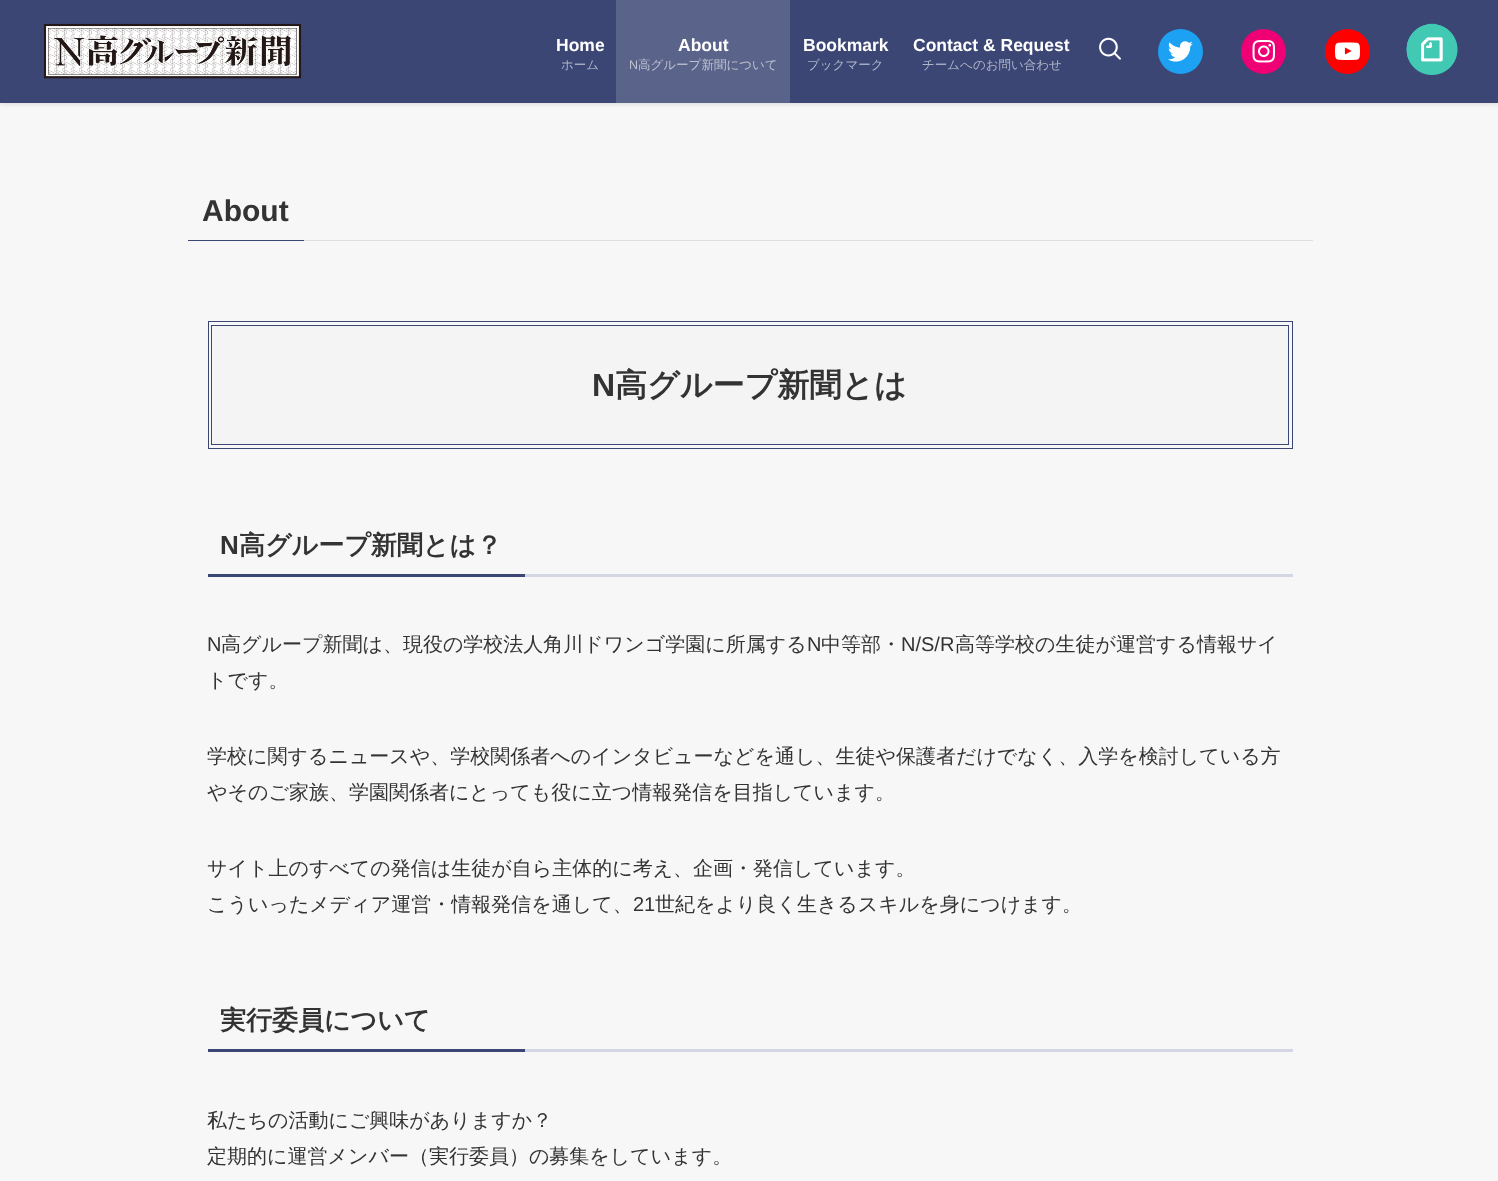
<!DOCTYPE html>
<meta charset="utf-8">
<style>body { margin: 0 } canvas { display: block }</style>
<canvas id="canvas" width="1498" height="1181"></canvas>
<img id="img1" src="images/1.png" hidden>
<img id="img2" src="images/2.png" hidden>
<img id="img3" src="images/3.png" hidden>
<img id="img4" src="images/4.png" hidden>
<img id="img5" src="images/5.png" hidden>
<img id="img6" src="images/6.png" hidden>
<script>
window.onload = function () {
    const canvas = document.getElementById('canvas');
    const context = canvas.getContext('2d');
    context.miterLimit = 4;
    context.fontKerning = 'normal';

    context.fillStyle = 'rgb(247, 247, 247)';
    context.fillRect(0, 0, 1498, 1181);
    context.fillStyle = 'rgba(0, 0, 0, 0.12)';
    context.filter = 'blur(2.5px)';
    context.beginPath();
    context.rect(0, 1, 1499, 103);
    context.fill();
    context.filter = 'none';
    context.fillStyle = 'rgb(59, 70, 117)';
    context.fillRect(0, 0, 1498, 103);
    context.drawImage(document.getElementById('img1'), 43, 23, 259, 56);
    context.fillStyle = 'rgb(90, 99, 138)';
    context.fillRect(616, 0, 174, 103);
    context.drawImage(document.getElementById('img2'), 1099, 37, 22, 23);
    context.fillStyle = 'rgb(29, 161, 242)';
    context.beginPath();
    context.arc(1180.5, 51.5, 22.5, 0, 2 * Math.PI);
    context.fill();
    context.drawImage(document.getElementById('img3'), 1168, 41, 25, 21);
    context.fillStyle = 'rgb(240, 0, 117)';
    context.beginPath();
    context.arc(1263.5, 51.5, 22.5, 0, 2 * Math.PI);
    context.fill();
    context.drawImage(document.getElementById('img4'), 1252, 40, 23, 23);
    context.fillStyle = 'rgb(255, 0, 0)';
    context.beginPath();
    context.arc(1347.5, 51.5, 22.5, 0, 2 * Math.PI);
    context.fill();
    context.drawImage(document.getElementById('img5'), 1335, 42, 25, 19);
    context.drawImage(document.getElementById('img6'), 1406, 23, 52, 52);
    context.fillStyle = 'rgb(223, 223, 223)';
    context.fillRect(304, 240, 1009, 1);
    context.fillStyle = 'rgb(59, 70, 117)';
    context.fillRect(188, 240, 116, 1);
    context.fillStyle = 'rgb(244, 244, 244)';
    context.fillRect(213, 326, 1075, 118);
    context.strokeStyle = 'rgb(59, 70, 117)';
    context.strokeRect(208.5, 321.5, 1084, 127);
    context.strokeRect(211.5, 325.5, 1077, 119);
    context.fillStyle = 'rgb(59, 70, 117)';
    context.fillRect(208, 574, 317, 3);
    context.fillStyle = 'rgb(212, 215, 227)';
    context.fillRect(525, 574, 768, 3);
    context.fillStyle = 'rgb(59, 70, 117)';
    context.fillRect(208, 1049, 317, 3);
    context.fillStyle = 'rgb(212, 215, 227)';
    context.fillRect(525, 1049, 768, 3);
    context.font = 'bold 17.5px Liberation Sans';
    context.fillStyle = 'rgb(255, 255, 255)';
    context.fillText('Home', 556, 51);
    context.font = '500 12.5px WenQuanYi Zen Hei';
    context.fillStyle = 'rgb(177, 181, 200)';
    context.fillText('ホーム', 561, 69);
    context.font = 'bold 17.5px Liberation Sans';
    context.fillStyle = 'rgb(255, 255, 255)';
    context.fillText('About', 678, 51);
    context.font = '12.5px Liberation Sans';
    context.fillStyle = 'rgb(189, 193, 208)';
    context.fillText('N', 629, 69);
    context.font = '500 12.5px WenQuanYi Zen Hei';
    context.fillText('高グループ新聞について', 638, 69);
    context.font = 'bold 17.5px Liberation Sans';
    context.fillStyle = 'rgb(255, 255, 255)';
    context.fillText('Bookmark', 803, 51);
    context.font = '500 12.5px WenQuanYi Zen Hei';
    context.fillStyle = 'rgb(177, 181, 200)';
    context.fillText('ブックマーク', 807, 69);
    context.font = 'bold 17.5px Liberation Sans';
    context.fillStyle = 'rgb(255, 255, 255)';
    context.fillText('Contact & Request', 913, 51);
    context.font = '500 12.5px WenQuanYi Zen Hei';
    context.fillStyle = 'rgb(177, 181, 200)';
    context.fillText('チームへのお問い合わせ', 922, 69);
    context.font = 'bold 30px Liberation Sans';
    context.fillStyle = 'rgb(51, 51, 51)';
    context.fillText('About', 202, 221);
    context.font = 'bold 32px Liberation Sans';
    context.fillText('N', 592, 396);
    context.font = 'bold 32px WenQuanYi Zen Hei';
    context.fillText('高グループ新聞とは', 615, 396);
    context.font = 'bold 26px Liberation Sans';
    context.fillText('N', 220, 554);
    context.font = 'bold 26px WenQuanYi Zen Hei';
    context.fillText('高グループ新聞とは？', 239, 554);
    context.font = '20px Liberation Sans';
    context.fillText('N', 207, 651);
    context.font = '500 20px WenQuanYi Zen Hei';
    context.fillText('高グループ新聞は、現役の学校法人角川ドワンゴ学園に所属する', 221, 651);
    context.font = '20px Liberation Sans';
    context.fillText('N', 807, 651);
    context.font = '500 20px WenQuanYi Zen Hei';
    context.fillText('中等部・', 821, 651);
    context.font = '20px Liberation Sans';
    context.fillText('N/S/R', 901, 651);
    context.font = '500 20px WenQuanYi Zen Hei';
    context.fillText('高等学校の生徒が運営する情報サイ', 955, 651);
    context.fillText('トです。', 207, 687);
    context.fillText('学校に関するニュースや、学校関係者へのインタビューなどを通し、生徒や保護者だけでなく、入学を検討している方', 207, 763);
    context.fillText('やそのご家族、学園関係者にとっても役に立つ情報発信を目指しています。', 207, 799);
    context.fillText('サイト上のすべての発信は生徒が自ら主体的に考え、企画・発信しています。', 207, 875);
    context.fillText('こういったメディア運営・情報発信を通して、', 207, 911);
    context.font = '20px Liberation Sans';
    context.fillText('21', 633, 911);
    context.font = '500 20px WenQuanYi Zen Hei';
    context.fillText('世紀をより良く生きるスキルを身につけます。', 655, 911);
    context.font = 'bold 26px WenQuanYi Zen Hei';
    context.fillText('実行委員について', 220, 1029);
    context.font = '500 20px WenQuanYi Zen Hei';
    context.fillText('私たちの活動にご興味がありますか？', 207, 1127);
    context.fillText('定期的に運営メンバー（実行委員）の募集をしています。', 207, 1163);
};
</script>
